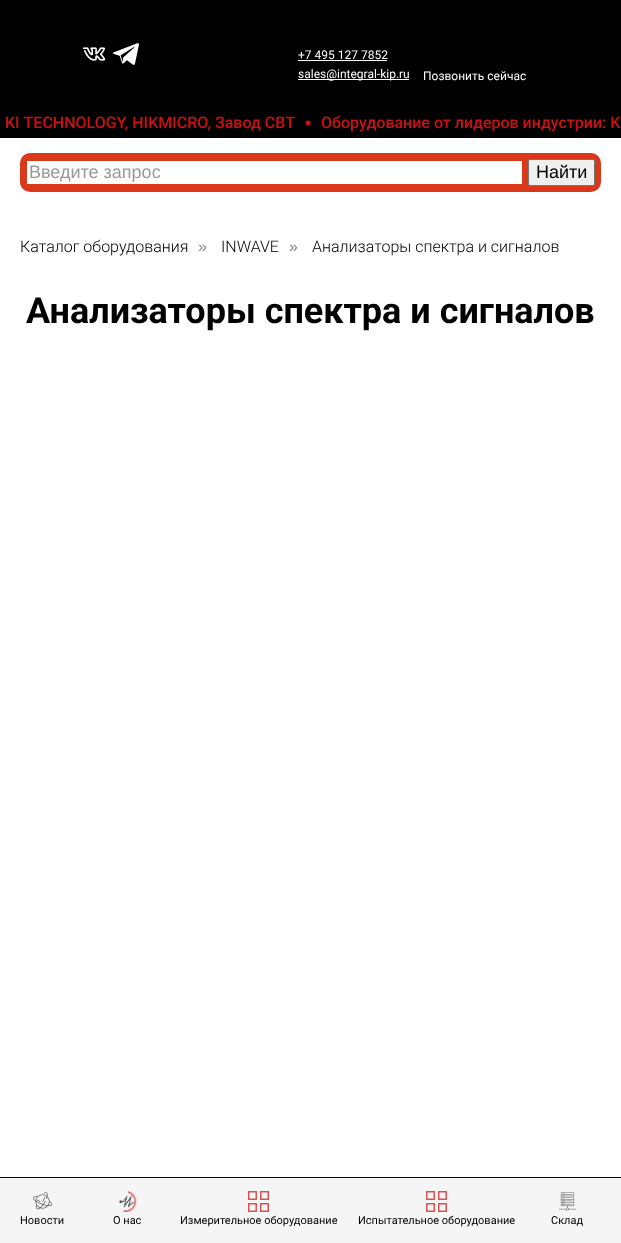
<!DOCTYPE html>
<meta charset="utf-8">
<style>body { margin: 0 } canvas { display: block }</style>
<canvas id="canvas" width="621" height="1243"></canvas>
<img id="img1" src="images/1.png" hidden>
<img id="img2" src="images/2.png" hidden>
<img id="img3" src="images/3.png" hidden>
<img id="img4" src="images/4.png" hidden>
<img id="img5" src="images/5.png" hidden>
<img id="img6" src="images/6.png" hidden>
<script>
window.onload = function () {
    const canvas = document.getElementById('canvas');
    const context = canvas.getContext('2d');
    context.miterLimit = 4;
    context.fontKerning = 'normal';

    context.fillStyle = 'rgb(255, 255, 255)';
    context.fillRect(0, 0, 621, 1243);
    context.fillStyle = 'rgb(0, 0, 0)';
    context.fillRect(0, 0, 621, 138);
    context.drawImage(document.getElementById('img1'), 82, 47, 24, 14);
    context.drawImage(document.getElementById('img2'), 113, 43, 26, 22);
    context.fillStyle = 'rgb(255, 255, 255)';
    context.fillRect(298, 60, 89, 1);
    context.fillRect(298, 79, 111, 1);
    context.fillStyle = 'rgb(203, 18, 17)';
    context.beginPath();
    context.arc(308.1, 123, 2.5, 0, 2 * Math.PI);
    context.fill();
    context.fillStyle = 'rgb(217, 56, 25)';
    context.beginPath();
    context.roundRect(20, 153, 581, 39, 10);
    context.fill();
    context.fillStyle = 'rgb(255, 255, 255)';
    context.fillRect(27, 161, 495, 23);
    context.fillStyle = 'rgb(239, 239, 239)';
    context.beginPath();
    context.roundRect(528.5, 159.5, 66, 26, 1.5);
    context.fill();
    context.strokeStyle = 'rgb(118, 118, 118)';
    context.stroke();
    context.fillStyle = 'rgb(245, 245, 245)';
    context.fillRect(0, 1178, 621, 65);
    context.fillStyle = 'rgb(8, 8, 8)';
    context.fillRect(0, 1177, 621, 1);
    context.drawImage(document.getElementById('img3'), 33, 1192, 19, 18);
    context.drawImage(document.getElementById('img4'), 118, 1191, 19, 21);
    context.drawImage(document.getElementById('img5'), 248, 1191, 21, 21);
    context.drawImage(document.getElementById('img5'), 426, 1191, 21, 21);
    context.drawImage(document.getElementById('img6'), 558, 1192, 19, 19);
    context.font = '12px Roboto';
    context.fillStyle = 'rgb(255, 255, 255)';
    context.fillText('+7 495 127 7852', 298, 59);
    context.fillText('sales@integral-kip.ru', 298, 78);
    context.fillText('Позвонить сейчас', 423, 80);
    context.font = '500 16px Roboto';
    context.fillStyle = 'rgb(203, 18, 17)';
    context.fillText('KI TECHNOLOGY, HIKMICRO, Завод СВТ', 5, 128);
    context.fillText('Оборудование от лидеров индустрии: K', 321, 128);
    context.font = '18px Liberation Sans';
    context.fillStyle = 'rgb(153, 153, 153)';
    context.fillText('Введите запрос', 29, 178);
    context.fillStyle = 'rgb(0, 0, 0)';
    context.fillText('Найти', 536, 178);
    context.font = '300 16px Roboto';
    context.fillText('Каталог оборудования', 20, 252);
    context.font = '16px Liberation Sans';
    context.fillStyle = 'rgb(133, 133, 133)';
    context.fillText('»', 198, 252);
    context.font = '300 16px Roboto';
    context.fillStyle = 'rgb(0, 0, 0)';
    context.fillText('INWAVE', 221, 252);
    context.font = '16px Liberation Sans';
    context.fillStyle = 'rgb(133, 133, 133)';
    context.fillText('»', 289, 252);
    context.font = '300 16px Roboto';
    context.fillStyle = 'rgb(0, 0, 0)';
    context.fillText('Анализаторы спектра и сигналов', 312, 252);
    context.font = 'bold 36px Roboto';
    context.fillText('Анализаторы спектра и сигналов', 26, 323);
    context.font = '11px Roboto';
    context.fillText('Новости', 20, 1224);
    context.fillText('О нас', 113, 1224);
    context.fillText('Измерительное оборудование', 180, 1224);
    context.fillText('Испытательное оборудование', 358, 1224);
    context.fillText('Склад', 551, 1224);
};
</script>
